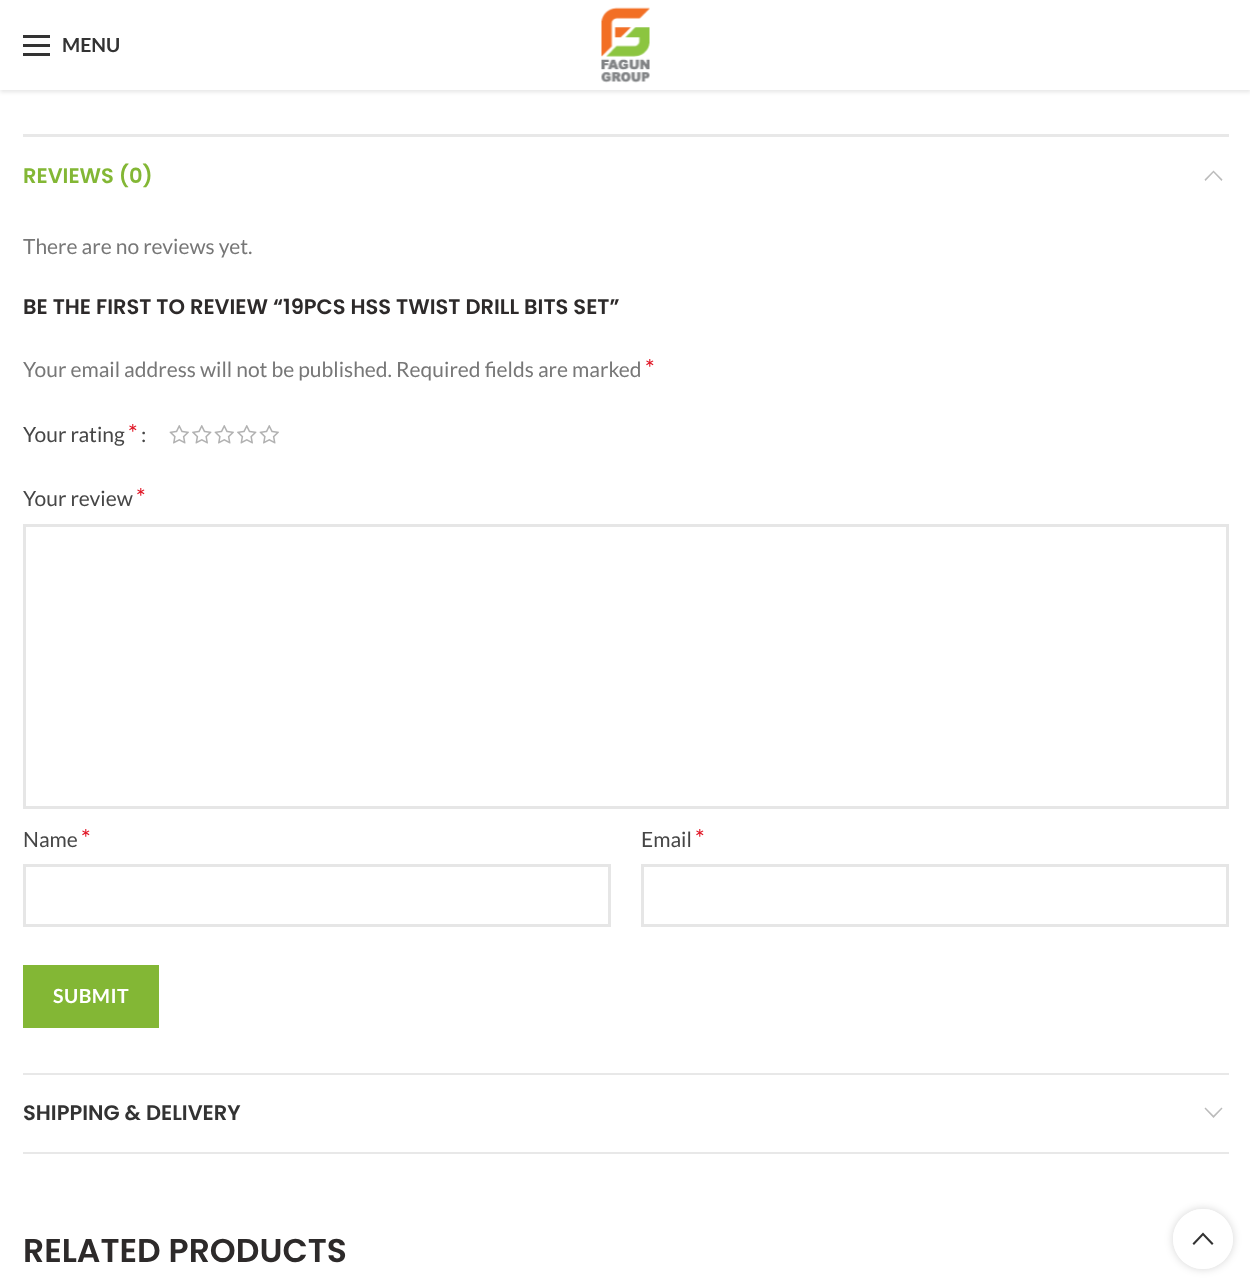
<!DOCTYPE html>
<meta charset="utf-8">
<style>body { margin: 0 } canvas { display: block }</style>
<canvas id="canvas" width="1250" height="1287"></canvas>
<img id="img1" src="images/1.png" hidden>
<img id="img2" src="images/2.png" hidden>
<img id="img3" src="images/3.png" hidden>
<script>
window.onload = function () {
    const canvas = document.getElementById('canvas');
    const context = canvas.getContext('2d');
    context.miterLimit = 4;
    context.fontKerning = 'normal';

    context.fillStyle = 'rgb(255, 255, 255)';
    context.fillRect(0, 0, 1250, 1287);
    context.fillStyle = 'rgba(0, 0, 0, 0.1)';
    context.filter = 'blur(2px)';
    context.beginPath();
    context.rect(0, 2, 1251, 90);
    context.fill();
    context.filter = 'none';
    context.fillStyle = 'rgb(255, 255, 255)';
    context.fillRect(0, 0, 1250, 90);
    context.fillStyle = 'rgb(51, 51, 51)';
    context.fillRect(23, 44, 27, 3);
    context.fillRect(23, 35, 27, 3);
    context.fillRect(23, 53, 27, 3);
    context.drawImage(document.getElementById('img1'), 601, 7, 49, 76);
    context.fillStyle = 'rgb(232, 232, 232)';
    context.fillRect(23, 134, 1206, 3);
    context.fillRect(23, 1073, 1206, 2);
    context.fillStyle = 'rgb(187, 187, 187)';
    context.beginPath();
    context.moveTo(1205.5, 181);
    context.lineTo(1204.5, 179.5);
    context.lineTo(1213.5, 170.5);
    context.lineTo(1222.5, 179.5);
    context.lineTo(1221.5, 181);
    context.lineTo(1213.5, 172.5);
    context.closePath();
    context.fill();
    context.drawImage(document.getElementById('img2'), 169, 425, 20, 19);
    context.drawImage(document.getElementById('img3'), 192, 425, 20, 19);
    context.drawImage(document.getElementById('img2'), 214, 425, 20, 19);
    context.drawImage(document.getElementById('img3'), 237, 425, 20, 19);
    context.drawImage(document.getElementById('img2'), 259, 425, 20, 19);
    context.strokeStyle = 'rgb(230, 230, 230)';
    context.lineWidth = 3;
    context.strokeRect(24.5, 525.5, 1203, 282);
    context.strokeRect(24.5, 865.5, 585, 60);
    context.strokeRect(642.5, 865.5, 585, 60);
    context.fillStyle = 'rgb(131, 183, 53)';
    context.fillRect(23, 965, 136, 63);
    context.fillStyle = 'rgb(232, 232, 232)';
    context.fillRect(23, 1152, 1206, 2);
    context.fillStyle = 'rgb(187, 187, 187)';
    context.beginPath();
    context.moveTo(1221.5, 1107.5);
    context.lineTo(1222.5, 1108.5);
    context.lineTo(1213.5, 1118);
    context.lineTo(1204.5, 1108.5);
    context.lineTo(1205.5, 1107.5);
    context.lineTo(1213.5, 1115.5);
    context.closePath();
    context.fill();
    context.save();
    context.beginPath();
    context.moveTo(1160, 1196);
    context.lineTo(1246, 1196);
    context.lineTo(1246, 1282);
    context.lineTo(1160, 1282);
    context.closePath();
    context.moveTo(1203, 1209);
    context.bezierCurveTo(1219.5, 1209, 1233, 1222.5, 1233, 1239);
    context.bezierCurveTo(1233, 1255.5, 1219.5, 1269, 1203, 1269);
    context.bezierCurveTo(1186.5, 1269, 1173, 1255.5, 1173, 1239);
    context.bezierCurveTo(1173, 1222.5, 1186.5, 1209, 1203, 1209);
    context.closePath();
    context.clip('evenodd');
    context.fillStyle = 'rgba(0, 0, 0, 0.17)';
    context.filter = 'blur(4px)';
    context.beginPath();
    context.roundRect(1173, 1209, 60, 60, 30);
    context.fill();
    context.filter = 'none';
    context.restore();
    context.fillStyle = 'rgba(255, 255, 255, 0.9)';
    context.beginPath();
    context.arc(1203, 1239, 30, 0, 2 * Math.PI);
    context.fill();
    context.fillStyle = 'rgb(51, 51, 51)';
    context.beginPath();
    context.moveTo(1203, 1232.5);
    context.lineTo(1213.5, 1243.5);
    context.lineTo(1212, 1245);
    context.lineTo(1203, 1235.5);
    context.lineTo(1194, 1245);
    context.lineTo(1192.5, 1243.5);
    context.closePath();
    context.fill();
    context.font = 'bold 19.5px Lato';
    context.fillText('MENU', 62, 52);
    context.font = '600 21px Poppins';
    context.fillStyle = 'rgb(131, 183, 53)';
    context.fillText('REVIEWS (0)', 23, 183);
    context.font = '21px Lato';
    context.fillStyle = 'rgb(119, 119, 119)';
    context.fillText('There are no reviews yet.', 23, 254);
    context.font = '600 21px Poppins';
    context.fillStyle = 'rgb(45, 42, 42)';
    context.fillText('BE THE FIRST TO REVIEW “19PCS HSS TWIST DRILL BITS SET”', 23, 314);
    context.font = '21px Lato';
    context.fillStyle = 'rgb(119, 119, 119)';
    context.fillText('Your email address will not be published. Required fields are marked', 23, 377);
    context.font = '24px Lato';
    context.fillStyle = 'rgb(224, 16, 32)';
    context.fillText('*', 645, 377);
    context.font = '21px Lato';
    context.fillStyle = 'rgb(70, 70, 70)';
    context.fillText('Your rating', 23, 442);
    context.font = '24px Lato';
    context.fillStyle = 'rgb(224, 16, 32)';
    context.fillText('*', 128, 442);
    context.font = '21px Lato';
    context.fillStyle = 'rgb(70, 70, 70)';
    context.fillText(':', 141, 442);
    context.fillText('Your review', 23, 506);
    context.font = '24px Lato';
    context.fillStyle = 'rgb(224, 16, 32)';
    context.fillText('*', 136, 506);
    context.font = '21px Lato';
    context.fillStyle = 'rgb(70, 70, 70)';
    context.fillText('Name', 23, 847);
    context.font = '24px Lato';
    context.fillStyle = 'rgb(224, 16, 32)';
    context.fillText('*', 81, 847);
    context.font = '21px Lato';
    context.fillStyle = 'rgb(70, 70, 70)';
    context.fillText('Email', 641, 847);
    context.font = '24px Lato';
    context.fillStyle = 'rgb(224, 16, 32)';
    context.fillText('*', 695, 847);
    context.letterSpacing = '0.5px';
    context.font = 'bold 19.5px Lato';
    context.fillStyle = 'rgb(255, 255, 255)';
    context.fillText('SUBMIT', 53, 1003);
    context.letterSpacing = '0px';
    context.font = '600 21px Poppins';
    context.fillStyle = 'rgb(51, 51, 51)';
    context.fillText('SHIPPING & DELIVERY', 23, 1120);
    context.font = '600 33px Poppins';
    context.fillStyle = 'rgb(45, 42, 42)';
    context.fillText('RELATED PRODUCTS', 23, 1262);
};
</script>
